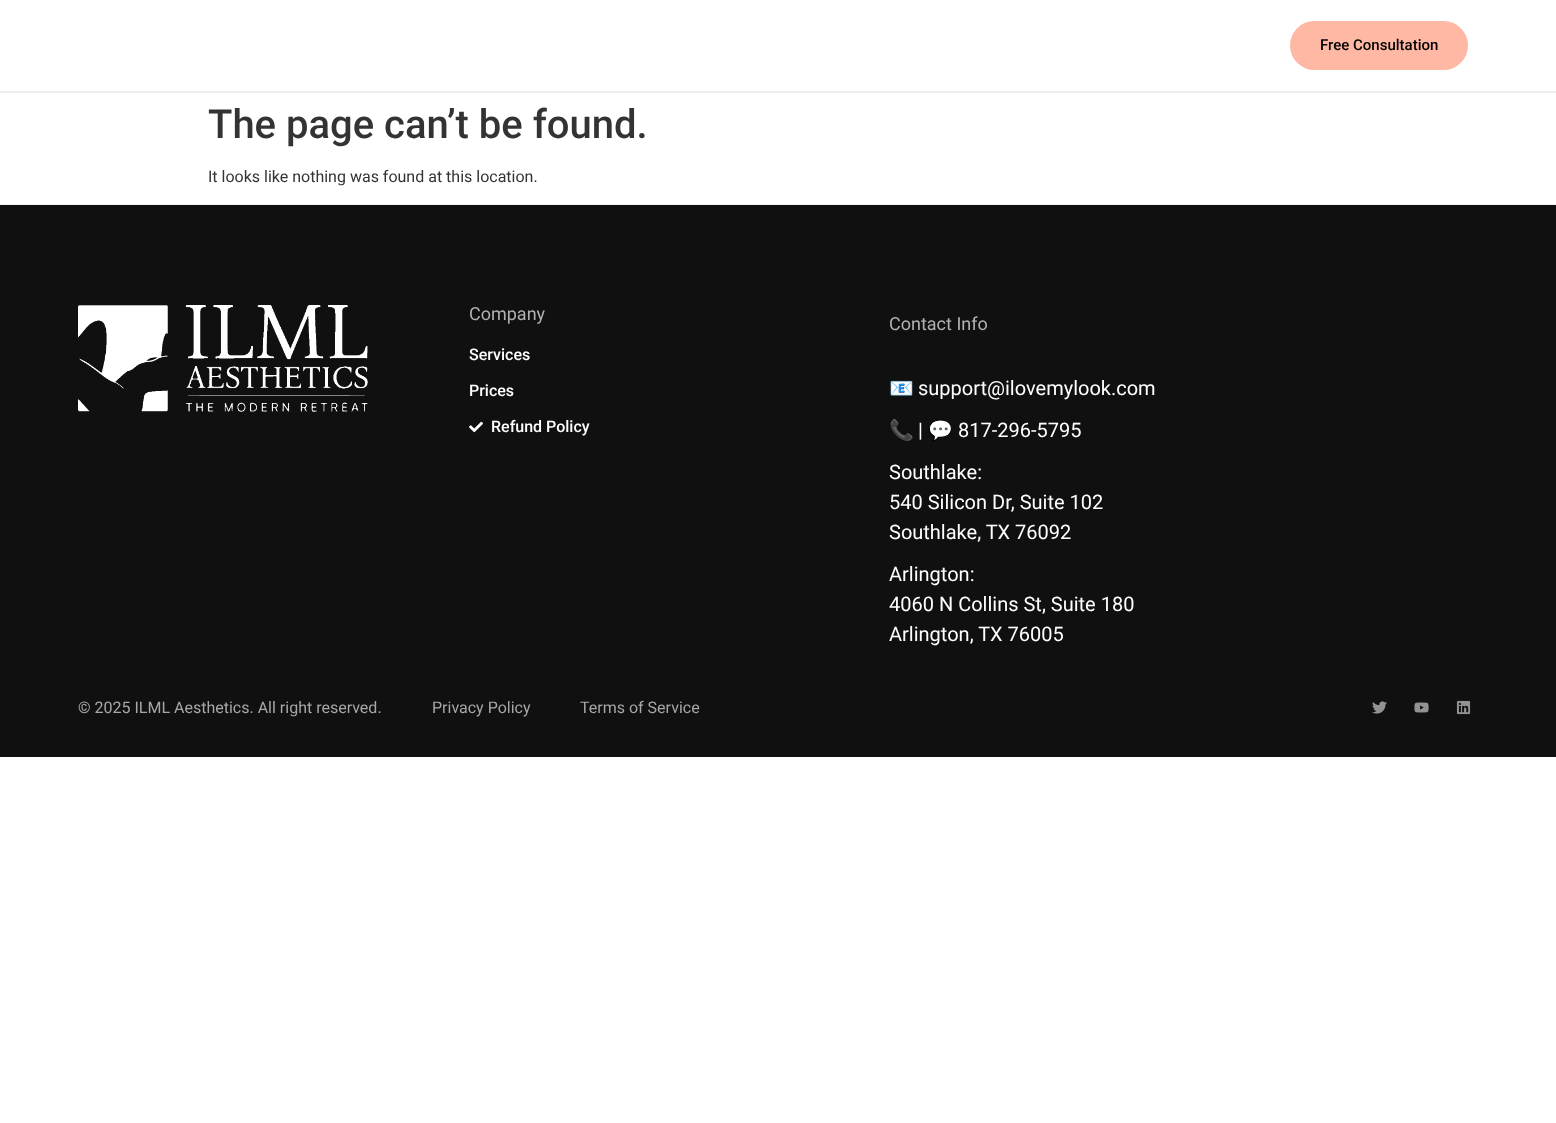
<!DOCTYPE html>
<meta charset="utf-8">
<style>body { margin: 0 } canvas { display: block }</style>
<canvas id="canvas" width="1556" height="1123"></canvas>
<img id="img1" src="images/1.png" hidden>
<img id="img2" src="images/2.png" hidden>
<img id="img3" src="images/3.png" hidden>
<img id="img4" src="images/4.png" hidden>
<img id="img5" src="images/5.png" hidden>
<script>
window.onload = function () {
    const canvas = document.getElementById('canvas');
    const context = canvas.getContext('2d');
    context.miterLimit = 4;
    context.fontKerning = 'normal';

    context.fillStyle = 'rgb(255, 255, 255)';
    context.fillRect(0, 0, 1556, 1123);
    context.fillStyle = 'rgb(255, 184, 164)';
    context.beginPath();
    context.roundRect(1290, 21, 178, 49, 24.5);
    context.fill();
    context.fillStyle = 'rgb(240, 239, 239)';
    context.fillRect(0, 91, 1556, 2);
    context.fillStyle = 'rgb(16, 16, 16)';
    context.fillRect(0, 205, 1556, 552);
    context.fillStyle = 'rgb(241, 241, 241)';
    context.fillRect(0, 204, 1556, 1);
    context.drawImage(document.getElementById('img1'), 78, 305, 290, 107);
    context.drawImage(document.getElementById('img2'), 469, 421, 14, 12);
    context.drawImage(document.getElementById('img3'), 1372, 701, 15, 13);
    context.drawImage(document.getElementById('img4'), 1414, 702, 15, 11);
    context.drawImage(document.getElementById('img5'), 1456, 700, 15, 15);
    context.font = '500 15px Roboto';
    context.fillStyle = 'rgb(0, 0, 0)';
    context.fillText('Free Consultation', 1320, 50);
    context.font = '500 40px Roboto';
    context.fillStyle = 'rgb(51, 51, 51)';
    context.fillText('The page can’t be found.', 208, 138);
    context.font = '16px Roboto';
    context.fillText('It looks like nothing was found at this location.', 208, 182);
    context.font = '18px Roboto';
    context.fillStyle = 'rgb(177, 177, 177)';
    context.fillText('Company', 469, 320);
    context.font = '500 16px Roboto';
    context.fillStyle = 'rgb(255, 255, 255)';
    context.fillText('Services', 469, 360);
    context.fillText('Prices', 469, 396);
    context.fillText('Refund Policy', 491, 432);
    context.font = '18px Roboto';
    context.fillStyle = 'rgb(177, 177, 177)';
    context.fillText('Contact Info', 889, 330);
    context.font = '20px Noto Color Emoji';
    context.fillStyle = 'rgb(255, 255, 255)';
    context.fillText('📧', 889, 395);
    context.font = '20px Roboto';
    context.fillText('support@ilovemylook.com', 918, 395);
    context.font = '20px Noto Color Emoji';
    context.fillText('📞', 889, 437);
    context.font = '20px Roboto';
    context.fillText('|', 918, 437);
    context.font = '20px Noto Color Emoji';
    context.fillText('💬', 928, 437);
    context.font = '20px Roboto';
    context.fillText('817-296-5795', 958, 437);
    context.fillText('Southlake:', 889, 479);
    context.fillText('540 Silicon Dr, Suite 102', 889, 509);
    context.fillText('Southlake, TX 76092', 889, 539);
    context.fillText('Arlington:', 889, 581);
    context.fillText('4060 N Collins St, Suite 180', 889, 611);
    context.fillText('Arlington, TX 76005', 889, 641);
    context.font = '16px Roboto';
    context.fillStyle = 'rgb(167, 167, 167)';
    context.fillText('© 2025 ILML Aesthetics. All right reserved.', 78, 713);
    context.fillText('Privacy Policy', 432, 713);
    context.fillText('Terms of Service', 580, 713);
};
</script>
